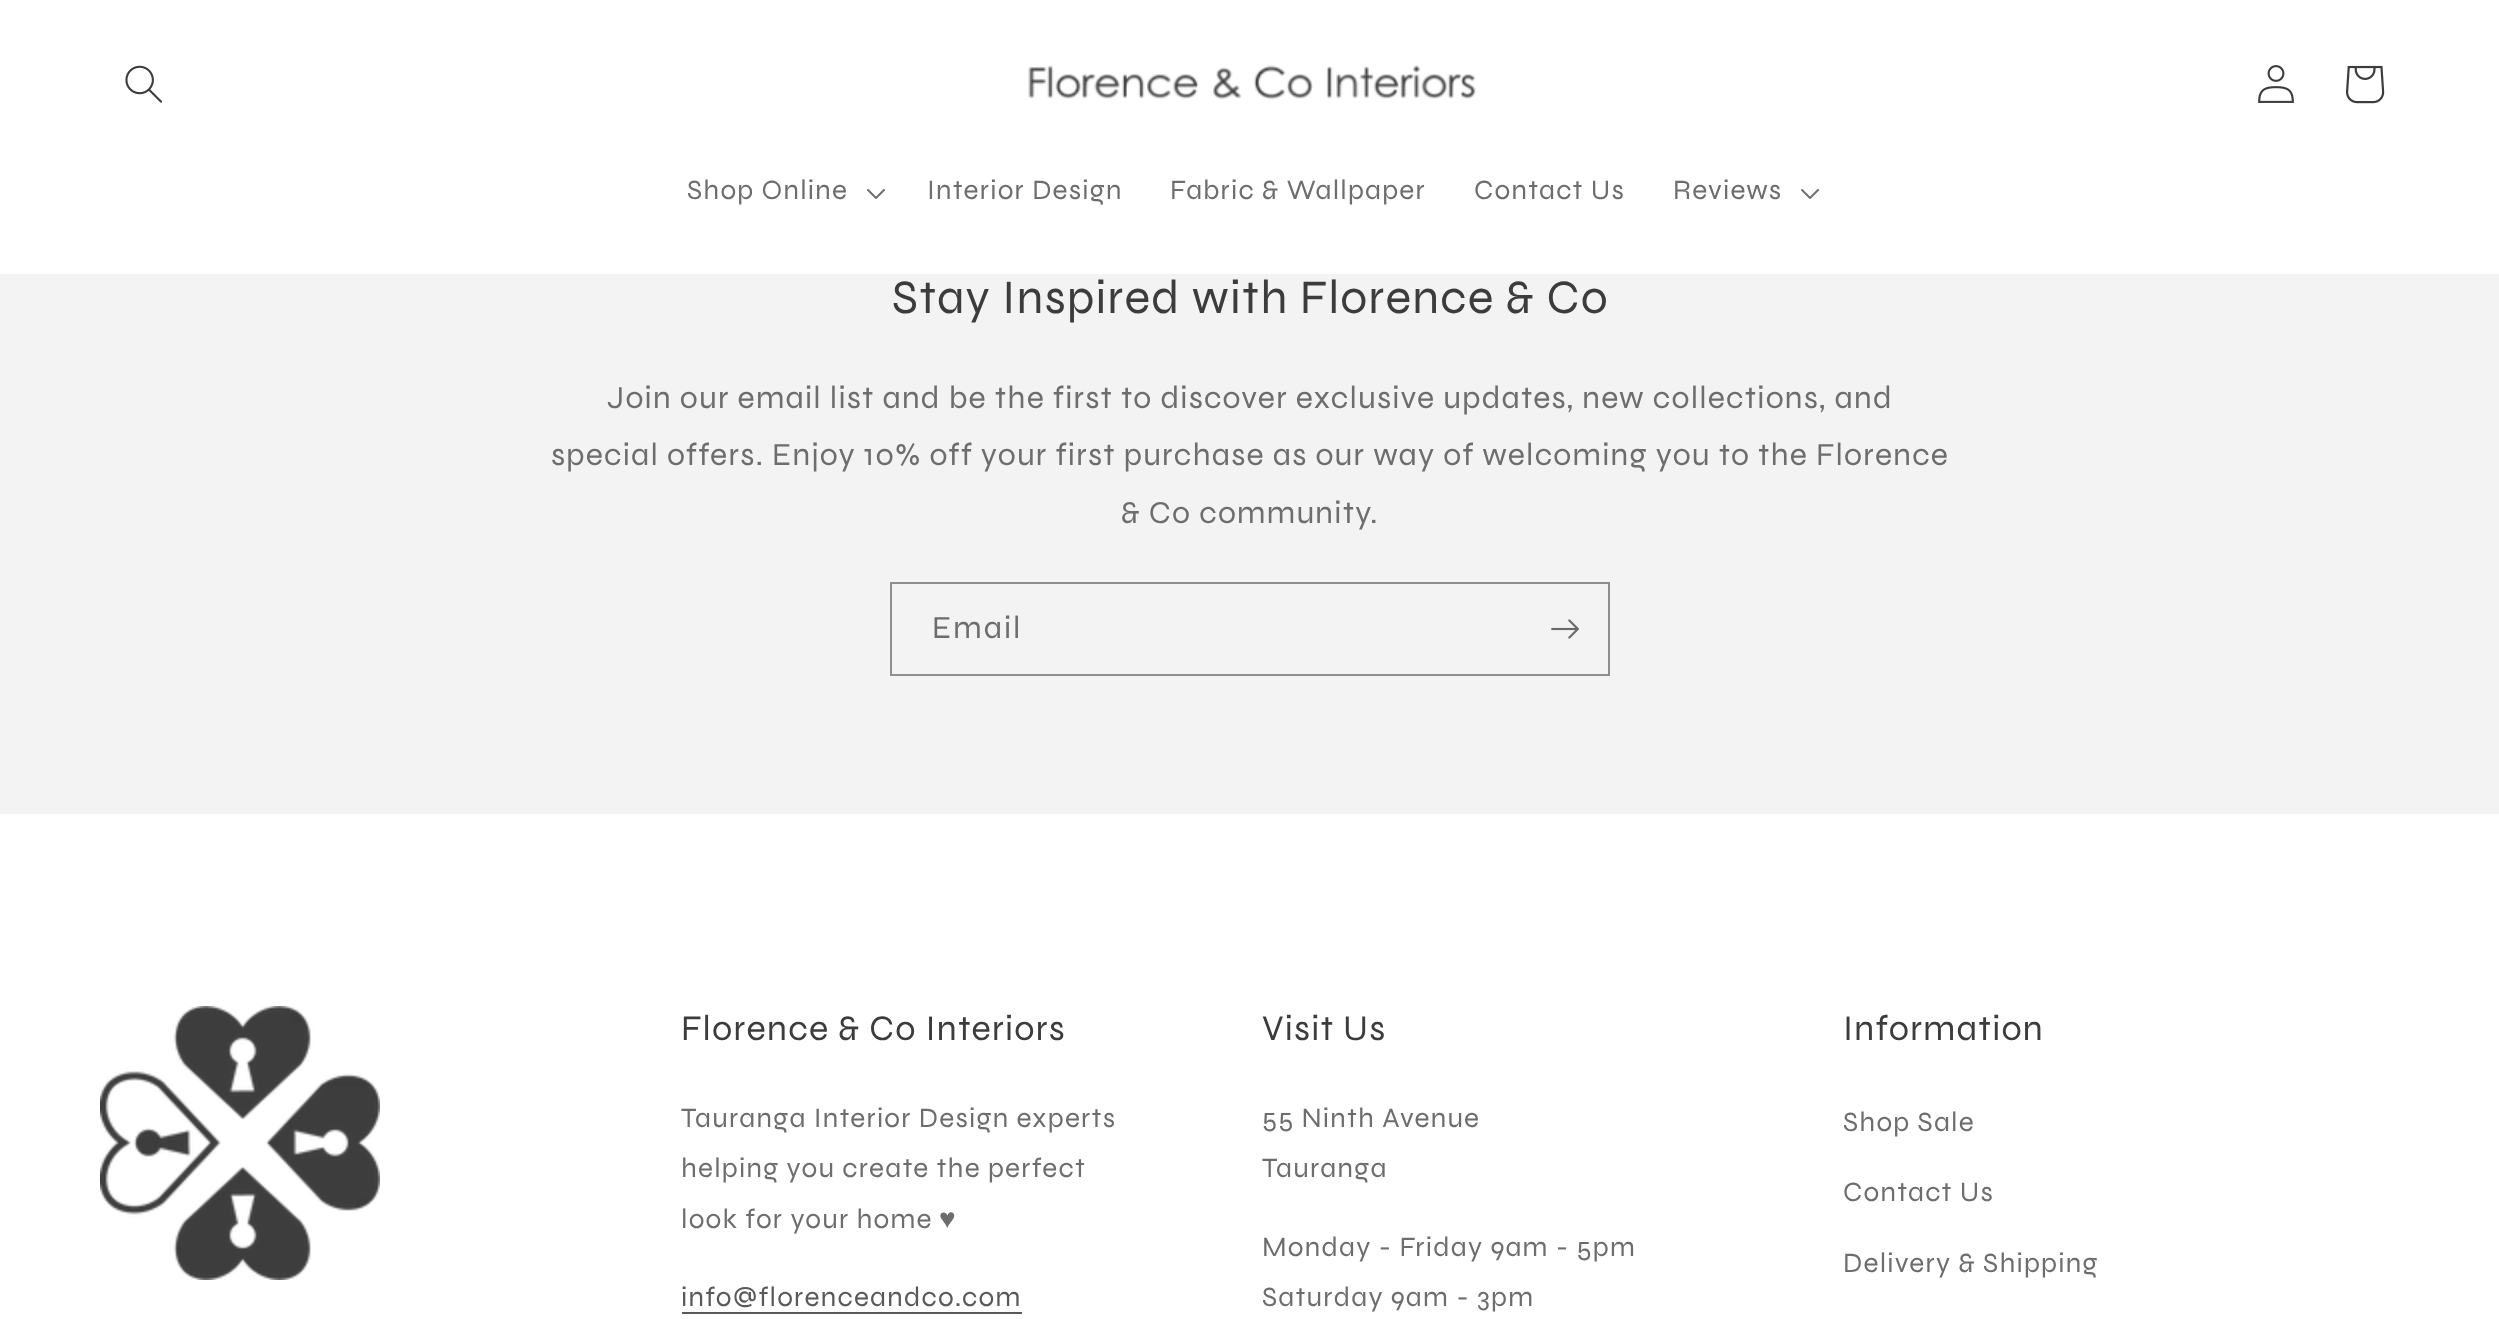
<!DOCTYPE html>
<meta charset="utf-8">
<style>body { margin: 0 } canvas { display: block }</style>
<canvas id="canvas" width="2499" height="1319"></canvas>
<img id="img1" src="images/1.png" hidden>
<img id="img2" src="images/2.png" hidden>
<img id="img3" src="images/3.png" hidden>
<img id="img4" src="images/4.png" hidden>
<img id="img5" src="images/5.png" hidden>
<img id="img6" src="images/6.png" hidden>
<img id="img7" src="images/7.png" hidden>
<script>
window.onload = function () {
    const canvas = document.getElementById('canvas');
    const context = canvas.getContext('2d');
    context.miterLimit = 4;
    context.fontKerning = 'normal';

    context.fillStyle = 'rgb(255, 255, 255)';
    context.fillRect(0, 0, 2499, 1319);
    context.drawImage(document.getElementById('img1'), 125, 65, 37, 38);
    context.drawImage(document.getElementById('img2'), 1028, 65, 448, 35);
    context.drawImage(document.getElementById('img3'), 2258, 65, 36, 38);
    context.drawImage(document.getElementById('img4'), 2346, 65, 39, 39);
    context.drawImage(document.getElementById('img5'), 867, 189, 18, 10);
    context.drawImage(document.getElementById('img5'), 1801, 189, 18, 10);
    context.fillStyle = 'rgb(243, 243, 243)';
    context.fillRect(0, 274, 2499, 540);
    context.strokeStyle = 'rgb(142, 142, 142)';
    context.lineWidth = 2;
    context.strokeRect(891, 583, 718, 92);
    context.drawImage(document.getElementById('img6'), 1551, 619, 28, 20);
    context.drawImage(document.getElementById('img7'), 100, 1006, 280, 274);
    context.fillStyle = 'rgb(89, 89, 89)';
    context.fillRect(682, 1312, 340, 2);
    context.letterSpacing = '1.2px';
    context.font = '28px Syne';
    context.fillStyle = 'rgb(109, 109, 109)';
    context.fillText('Shop Online', 687, 199);
    context.fillText('Interior Design', 927, 199);
    context.fillText('Fabric & Wallpaper', 1170, 199);
    context.fillText('Contact Us', 1474, 199);
    context.fillText('Reviews', 1673, 199);
    context.font = '48px Syne';
    context.fillStyle = 'rgb(60, 60, 60)';
    context.fillText('Stay Inspired with Florence & Co', 892, 313);
    context.font = '32px Syne';
    context.fillStyle = 'rgb(109, 109, 109)';
    context.fillText('Join our email list and be the first to discover exclusive updates, new collections, and', 607, 408);
    context.fillText('special offers. Enjoy 10% off your first purchase as our way of welcoming you to the Florence', 551, 465);
    context.fillText('& Co community.', 1121, 523);
    context.letterSpacing = '2px';
    context.fillText('Email', 932, 638);
    context.letterSpacing = '1.2px';
    context.font = '36px Syne';
    context.fillStyle = 'rgb(60, 60, 60)';
    context.fillText('Florence & Co Interiors', 681, 1040);
    context.font = '28px Syne';
    context.fillStyle = 'rgb(109, 109, 109)';
    context.fillText('Tauranga Interior Design experts', 681, 1127);
    context.fillText('helping you create the perfect', 681, 1177);
    context.fillText('look for your home', 681, 1228);
    context.font = '28px Liberation Sans';
    context.fillText('♥︎', 939, 1228);
    context.font = '28px Syne';
    context.fillStyle = 'rgb(89, 89, 89)';
    context.fillText('info@florenceandco.com', 681, 1306);
    context.font = '36px Syne';
    context.fillStyle = 'rgb(60, 60, 60)';
    context.fillText('Visit Us', 1262, 1040);
    context.font = '28px Syne';
    context.fillStyle = 'rgb(109, 109, 109)';
    context.fillText('55 Ninth Avenue', 1262, 1127);
    context.fillText('Tauranga', 1262, 1177);
    context.fillText('Monday - Friday 9am - 5pm', 1262, 1256);
    context.fillText('Saturday 9am - 3pm', 1262, 1306);
    context.font = '36px Syne';
    context.fillStyle = 'rgb(60, 60, 60)';
    context.fillText('Information', 1843, 1040);
    context.font = '28px Syne';
    context.fillStyle = 'rgb(109, 109, 109)';
    context.fillText('Shop Sale', 1843, 1131);
    context.fillText('Contact Us', 1843, 1201);
    context.fillText('Delivery & Shipping', 1843, 1272);
};
</script>
